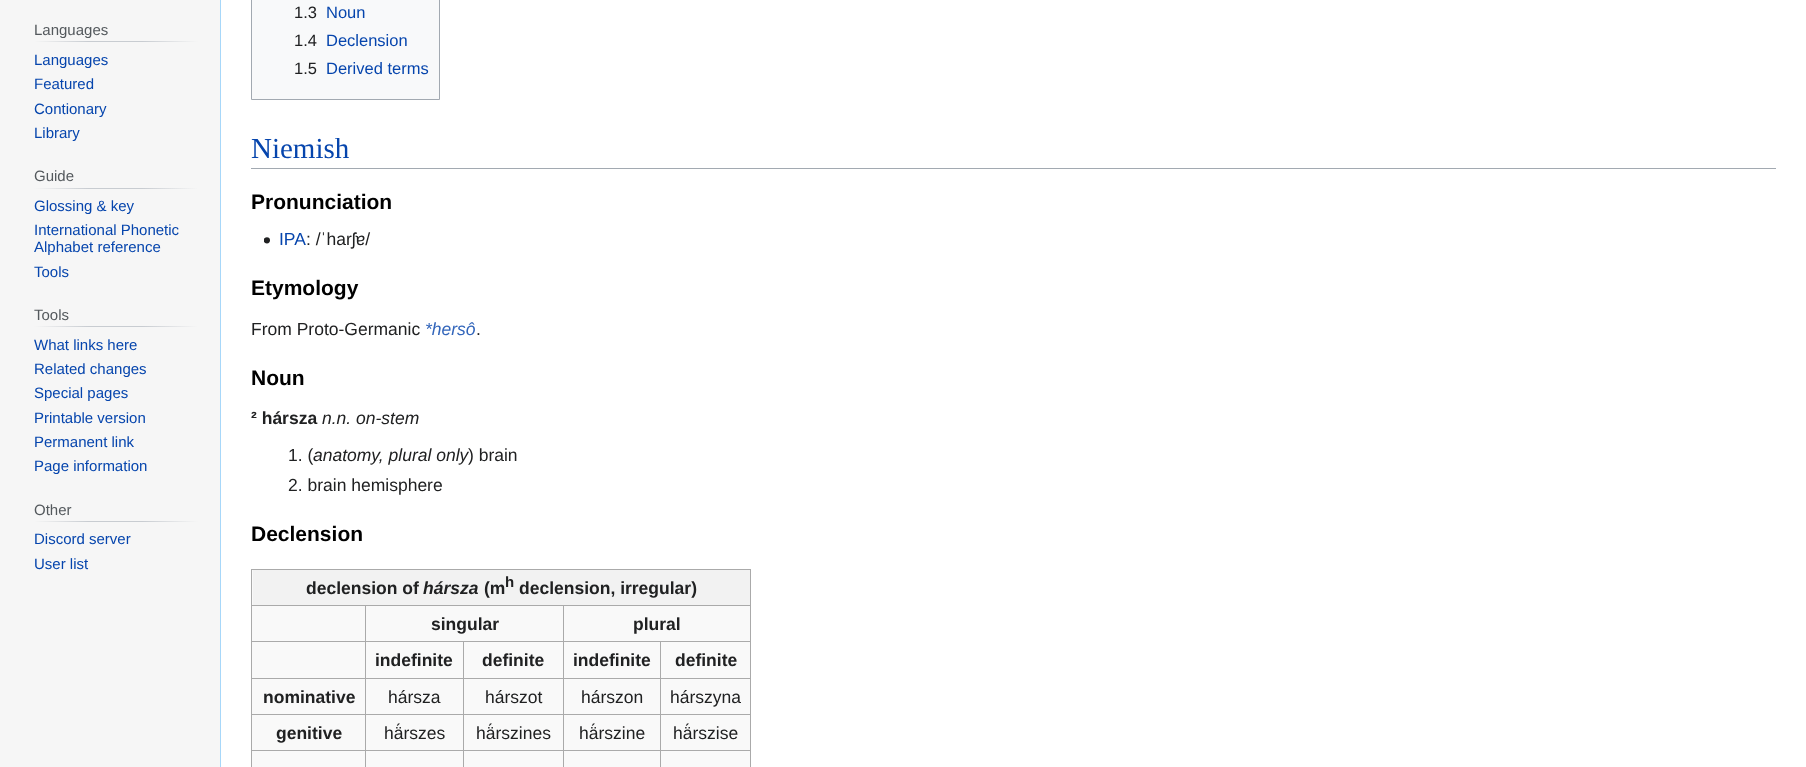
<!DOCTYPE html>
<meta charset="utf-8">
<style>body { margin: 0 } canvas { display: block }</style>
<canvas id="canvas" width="1806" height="767"></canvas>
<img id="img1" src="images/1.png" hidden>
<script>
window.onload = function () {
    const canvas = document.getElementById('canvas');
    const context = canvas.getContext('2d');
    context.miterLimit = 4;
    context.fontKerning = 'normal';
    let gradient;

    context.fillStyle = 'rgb(246, 246, 246)';
    context.fillRect(0, 0, 1806, 767);
    gradient = context.createLinearGradient(34, 42, 198, 42);
    gradient.addColorStop(0, 'rgb(246, 246, 246)');
    gradient.addColorStop(0.33, 'rgb(200, 204, 209)');
    gradient.addColorStop(0.66, 'rgb(200, 204, 209)');
    gradient.addColorStop(1, 'rgb(246, 246, 246)');
    context.fillStyle = gradient;
    context.fillRect(34, 41, 164, 1);
    gradient = context.createLinearGradient(34, 188, 198, 188);
    gradient.addColorStop(0, 'rgb(246, 246, 246)');
    gradient.addColorStop(0.33, 'rgb(200, 204, 209)');
    gradient.addColorStop(0.66, 'rgb(200, 204, 209)');
    gradient.addColorStop(1, 'rgb(246, 246, 246)');
    context.fillStyle = gradient;
    context.fillRect(34, 188, 164, 1);
    gradient = context.createLinearGradient(34, 327, 198, 327);
    gradient.addColorStop(0, 'rgb(246, 246, 246)');
    gradient.addColorStop(0.33, 'rgb(200, 204, 209)');
    gradient.addColorStop(0.66, 'rgb(200, 204, 209)');
    gradient.addColorStop(1, 'rgb(246, 246, 246)');
    context.fillStyle = gradient;
    context.fillRect(34, 326, 164, 1);
    gradient = context.createLinearGradient(34, 522, 198, 522);
    gradient.addColorStop(0, 'rgb(246, 246, 246)');
    gradient.addColorStop(0.33, 'rgb(200, 204, 209)');
    gradient.addColorStop(0.66, 'rgb(200, 204, 209)');
    gradient.addColorStop(1, 'rgb(246, 246, 246)');
    context.fillStyle = gradient;
    context.fillRect(34, 521, 164, 1);
    context.fillStyle = 'rgb(255, 255, 255)';
    context.fillRect(221, 0, 1585, 767);
    context.fillStyle = 'rgb(167, 215, 249)';
    context.fillRect(220, 0, 1, 767);
    context.fillStyle = 'rgb(248, 249, 250)';
    context.beginPath();
    context.rect(251.5, -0.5, 188, 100);
    context.fill();
    context.strokeStyle = 'rgb(162, 169, 177)';
    context.stroke();
    context.fillStyle = 'rgb(162, 169, 177)';
    context.fillRect(251, 168, 1525, 1);
    context.drawImage(document.getElementById('img1'), 264, 237, 6, 7);
    context.fillStyle = 'rgb(249, 249, 249)';
    context.fillRect(252, 570, 498, 197);
    context.fillStyle = 'rgb(170, 170, 170)';
    context.fillRect(251, 569, 500, 1);
    context.fillRect(750, 569, 1, 198);
    context.fillRect(251, 569, 1, 198);
    context.fillStyle = 'rgb(242, 242, 242)';
    context.fillRect(253, 570, 497, 35);
    context.fillStyle = 'rgb(170, 170, 170)';
    context.fillRect(563, 605, 188, 1);
    context.fillRect(660, 641, 91, 1);
    context.fillRect(660, 678, 91, 1);
    context.fillRect(660, 714, 91, 1);
    context.fillRect(660, 750, 91, 1);
    context.fillRect(660, 750, 1, 17);
    context.fillRect(563, 750, 98, 1);
    context.fillRect(660, 714, 1, 37);
    context.fillRect(563, 714, 98, 1);
    context.fillRect(660, 678, 1, 37);
    context.fillRect(563, 678, 98, 1);
    context.fillRect(660, 641, 1, 38);
    context.fillRect(563, 641, 98, 1);
    context.fillRect(563, 750, 1, 17);
    context.fillRect(463, 750, 101, 1);
    context.fillRect(563, 714, 1, 37);
    context.fillRect(463, 714, 101, 1);
    context.fillRect(563, 678, 1, 37);
    context.fillRect(463, 678, 101, 1);
    context.fillRect(563, 641, 1, 38);
    context.fillRect(463, 641, 101, 1);
    context.fillRect(563, 605, 1, 38);
    context.fillRect(365, 605, 199, 1);
    context.fillRect(463, 750, 1, 17);
    context.fillRect(365, 750, 99, 1);
    context.fillRect(463, 714, 1, 37);
    context.fillRect(365, 714, 99, 1);
    context.fillRect(463, 678, 1, 37);
    context.fillRect(365, 678, 99, 1);
    context.fillRect(463, 641, 1, 38);
    context.fillRect(365, 641, 99, 1);
    context.fillRect(365, 750, 1, 17);
    context.fillRect(251, 750, 115, 1);
    context.fillRect(365, 714, 1, 37);
    context.fillRect(251, 714, 115, 1);
    context.fillRect(365, 678, 1, 37);
    context.fillRect(251, 678, 115, 1);
    context.fillRect(365, 641, 1, 38);
    context.fillRect(251, 641, 115, 1);
    context.fillRect(365, 605, 1, 38);
    context.fillRect(251, 605, 115, 1);
    context.font = '15px Liberation Sans';
    context.fillStyle = 'rgb(84, 89, 93)';
    context.fillText('Languages', 34, 35);
    context.fillStyle = 'rgb(6, 69, 173)';
    context.fillText('Languages', 34, 65);
    context.fillText('Featured', 34, 89);
    context.fillText('Contionary', 34, 114);
    context.fillText('Library', 34, 138);
    context.fillStyle = 'rgb(84, 89, 93)';
    context.fillText('Guide', 34, 181);
    context.fillStyle = 'rgb(6, 69, 173)';
    context.fillText('Glossing & key', 34, 211);
    context.fillText('International Phonetic', 34, 235);
    context.fillText('Alphabet reference', 34, 252);
    context.fillText('Tools', 34, 277);
    context.fillStyle = 'rgb(84, 89, 93)';
    context.fillText('Tools', 34, 320);
    context.fillStyle = 'rgb(6, 69, 173)';
    context.fillText('What links here', 34, 350);
    context.fillText('Related changes', 34, 374);
    context.fillText('Special pages', 34, 398);
    context.fillText('Printable version', 34, 423);
    context.fillText('Permanent link', 34, 447);
    context.fillText('Page information', 34, 471);
    context.fillStyle = 'rgb(84, 89, 93)';
    context.fillText('Other', 34, 515);
    context.fillStyle = 'rgb(6, 69, 173)';
    context.fillText('Discord server', 34, 544);
    context.fillText('User list', 34, 569);
    context.font = '16.5px Liberation Sans';
    context.fillStyle = 'rgb(32, 33, 34)';
    context.fillText('1.3', 294, 18);
    context.fillStyle = 'rgb(6, 69, 173)';
    context.fillText('Noun', 326, 18);
    context.fillStyle = 'rgb(32, 33, 34)';
    context.fillText('1.4', 294, 46);
    context.fillStyle = 'rgb(6, 69, 173)';
    context.fillText('Declension', 326, 46);
    context.fillStyle = 'rgb(32, 33, 34)';
    context.fillText('1.5', 294, 74);
    context.fillStyle = 'rgb(6, 69, 173)';
    context.fillText('Derived terms', 326, 74);
    context.font = '29px Liberation Serif';
    context.fillText('Niemish', 251, 158);
    context.font = 'bold 21px Liberation Sans';
    context.fillStyle = 'rgb(0, 0, 0)';
    context.fillText('Pronunciation', 251, 209);
    context.font = '17.5px Liberation Sans';
    context.fillStyle = 'rgb(6, 69, 173)';
    context.fillText('IPA', 279, 245);
    context.fillStyle = 'rgb(32, 33, 34)';
    context.fillText(': /ˈharʃɐ/', 306, 245);
    context.font = 'bold 21px Liberation Sans';
    context.fillStyle = 'rgb(0, 0, 0)';
    context.fillText('Etymology', 251, 295);
    context.font = '17.5px Liberation Sans';
    context.fillStyle = 'rgb(32, 33, 34)';
    context.fillText('From Proto-Germanic', 251, 335);
    context.font = 'italic 17.5px Liberation Sans';
    context.fillStyle = 'rgb(51, 102, 187)';
    context.fillText('*hersô', 425, 335);
    context.font = '17.5px Liberation Sans';
    context.fillStyle = 'rgb(32, 33, 34)';
    context.fillText('.', 476, 335);
    context.font = 'bold 21px Liberation Sans';
    context.fillStyle = 'rgb(0, 0, 0)';
    context.fillText('Noun', 251, 385);
    context.font = 'bold 17.5px Liberation Sans';
    context.fillStyle = 'rgb(32, 33, 34)';
    context.fillText('² hársza', 251, 424);
    context.font = 'italic 17.5px Liberation Sans';
    context.fillText('n.n. on-stem', 322, 424);
    context.font = '17.5px Liberation Sans';
    context.fillText('1. (', 288, 461);
    context.font = 'italic 17.5px Liberation Sans';
    context.fillText('anatomy, plural only', 313, 461);
    context.font = '17.5px Liberation Sans';
    context.fillText(') brain', 468, 461);
    context.fillText('2. brain hemisphere', 288, 491);
    context.font = 'bold 21px Liberation Sans';
    context.fillStyle = 'rgb(0, 0, 0)';
    context.fillText('Declension', 251, 541);
    context.font = 'bold 17.5px Liberation Sans';
    context.fillStyle = 'rgb(32, 33, 34)';
    context.fillText('declension of', 306, 594);
    context.font = 'italic bold 17.5px Liberation Sans';
    context.fillText('hársza', 423, 594);
    context.font = 'bold 17.5px Liberation Sans';
    context.fillText('(m', 484, 594);
    context.font = 'bold 15px Liberation Sans';
    context.fillText('h', 505, 587);
    context.font = 'bold 17.5px Liberation Sans';
    context.fillText('declension, irregular)', 519, 594);
    context.fillText('singular', 431, 630);
    context.fillText('plural', 633, 630);
    context.fillText('indefinite', 375, 666);
    context.fillText('definite', 482, 666);
    context.fillText('indefinite', 573, 666);
    context.fillText('definite', 675, 666);
    context.fillText('nominative', 263, 703);
    context.font = '17.5px Liberation Sans';
    context.fillText('hársza', 388, 703);
    context.fillText('hárszot', 485, 703);
    context.fillText('hárszon', 581, 703);
    context.fillText('hárszyna', 670, 703);
    context.font = 'bold 17.5px Liberation Sans';
    context.fillText('genitive', 276, 739);
    context.font = '17.5px Liberation Sans';
    context.fillText('hä́rszes', 384, 739);
    context.fillText('hä́rszines', 476, 739);
    context.fillText('hä́rszine', 579, 739);
    context.fillText('hä́rszise', 673, 739);
};
</script>
